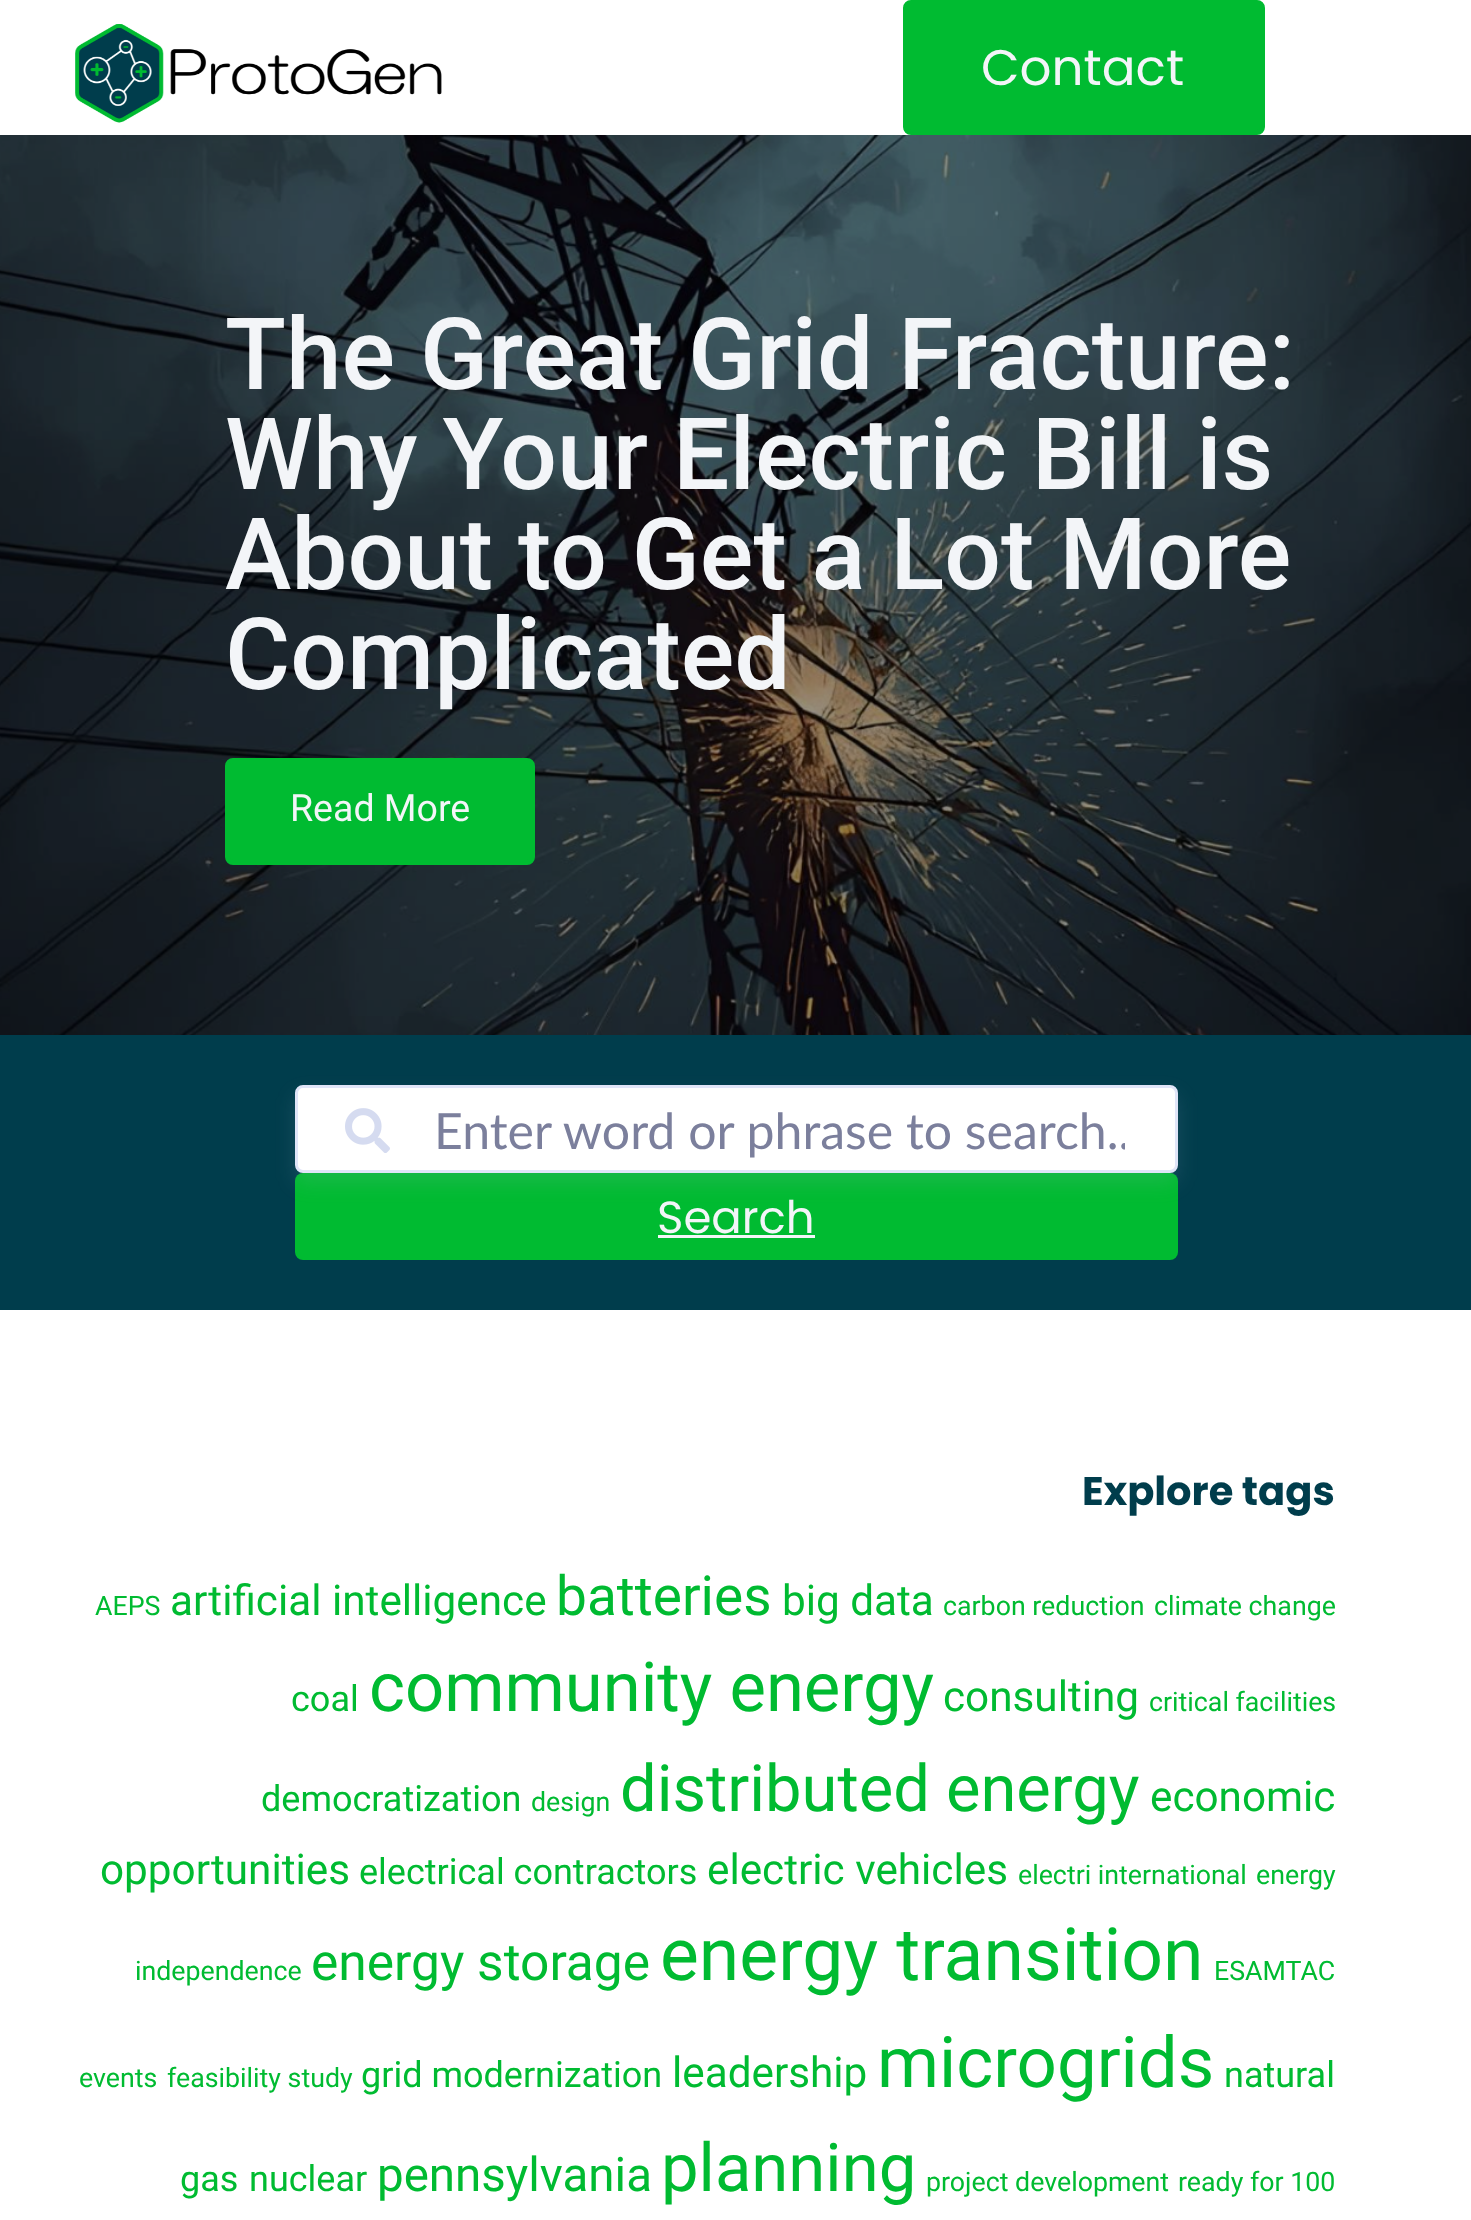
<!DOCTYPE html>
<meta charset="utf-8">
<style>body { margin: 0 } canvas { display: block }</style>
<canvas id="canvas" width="1471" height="2220"></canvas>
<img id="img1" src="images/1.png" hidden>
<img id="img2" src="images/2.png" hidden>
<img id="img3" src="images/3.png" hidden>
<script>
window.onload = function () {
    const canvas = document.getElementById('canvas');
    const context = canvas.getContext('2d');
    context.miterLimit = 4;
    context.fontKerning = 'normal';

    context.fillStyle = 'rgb(255, 255, 255)';
    context.fillRect(0, 0, 1471, 2220);
    context.drawImage(document.getElementById('img1'), 75, 24, 367, 99);
    context.fillStyle = 'rgb(0, 187, 49)';
    context.beginPath();
    context.roundRect(905.5, 2.5, 357, 130, 5.5);
    context.fill();
    context.strokeStyle = 'rgb(0, 187, 49)';
    context.lineWidth = 5;
    context.stroke();
    context.drawImage(document.getElementById('img2'), 0, 135, 1471, 900);
    context.beginPath();
    context.roundRect(227.5, 760.5, 305, 102, 5.5);
    context.fill();
    context.stroke();
    context.fillStyle = 'rgb(0, 61, 76)';
    context.fillRect(0, 1035, 1471, 275);
    context.fillStyle = 'rgb(0, 187, 49)';
    context.beginPath();
    context.roundRect(295, 1173, 883, 87, 8);
    context.fill();
    context.fillStyle = 'rgba(165, 174, 213, 0.15)';
    context.filter = 'blur(10px)';
    context.beginPath();
    context.roundRect(295, 1095, 883, 88, 8);
    context.fill();
    context.filter = 'none';
    context.fillStyle = 'rgb(255, 255, 255)';
    context.beginPath();
    context.roundRect(296.5, 1086.5, 880, 85, 6.5);
    context.fill();
    context.strokeStyle = 'rgb(224, 229, 248)';
    context.lineWidth = 3;
    context.stroke();
    context.drawImage(document.getElementById('img3'), 345, 1108, 45, 45);
    context.fillStyle = 'rgb(243, 245, 248)';
    context.fillRect(658, 1235, 157, 3);
    context.font = '50px Poppins';
    context.fillText('Contact', 981, 85);
    context.font = '500 100px Roboto';
    context.fillText('The Great Grid Fracture:', 225, 389);
    context.fillText('Why Your Electric Bill is', 225, 489);
    context.fillText('About to Get a Lot More', 225, 589);
    context.fillText('Complicated', 225, 689);
    context.font = '37.5px Roboto';
    context.fillText('Read More', 290, 821);
    context.save();
    context.beginPath();
    context.rect(435, 1100, 690, 60);
    context.clip();
    context.font = '50px Lato';
    context.fillStyle = 'rgb(123, 127, 156)';
    context.fillText('Enter word or phrase to search..', 434, 1149);
    context.restore();
    context.font = '45px Poppins';
    context.fillText('Search', 657, 1233);
    context.font = 'bold 40px Poppins';
    context.fillStyle = 'rgb(0, 61, 76)';
    context.fillText('Explore tags', 1082, 1505);
    context.font = '26.75px Roboto';
    context.fillStyle = 'rgb(0, 187, 49)';
    context.fillText('AEPS', 95, 1615);
    context.font = '42.25px Roboto';
    context.fillText('artificial intelligence', 170, 1615);
    context.font = '55px Roboto';
    context.fillText('batteries', 556, 1615);
    context.font = '42.25px Roboto';
    context.fillText('big data', 782, 1615);
    context.font = '26.75px Roboto';
    context.fillText('carbon reduction', 943, 1615);
    context.fillText('climate change', 1154, 1615);
    context.font = '36px Roboto';
    context.fillText('coal', 291, 1711);
    context.font = '68.75px Roboto';
    context.fillText('community energy', 369, 1711);
    context.font = '42.25px Roboto';
    context.fillText('consulting', 943, 1711);
    context.font = '26.75px Roboto';
    context.fillText('critical facilities', 1149, 1711);
    context.font = '36px Roboto';
    context.fillText('democratization', 261, 1811);
    context.font = '26.75px Roboto';
    context.fillText('design', 531, 1811);
    context.font = '65px Roboto';
    context.fillText('distributed energy', 620, 1811);
    context.font = '42.25px Roboto';
    context.fillText('economic', 1150, 1811);
    context.fillText('opportunities', 100, 1884);
    context.font = '36px Roboto';
    context.fillText('electrical contractors', 359, 1884);
    context.font = '42.25px Roboto';
    context.fillText('electric vehicles', 707, 1884);
    context.font = '26.75px Roboto';
    context.fillText('electri international', 1018, 1884);
    context.fillText('energy', 1256, 1884);
    context.fillText('independence', 135, 1980);
    context.font = '51.5px Roboto';
    context.fillText('energy storage', 311, 1980);
    context.font = '73.25px Roboto';
    context.fillText('energy transition', 660, 1980);
    context.font = '26.75px Roboto';
    context.fillText('ESAMTAC', 1214, 1980);
    context.fillText('events', 79, 2087);
    context.fillText('feasibility study', 167, 2087);
    context.font = '36px Roboto';
    context.fillText('grid modernization', 361, 2087);
    context.font = '42.25px Roboto';
    context.fillText('leadership', 672, 2087);
    context.font = '70.75px Roboto';
    context.fillText('microgrids', 877, 2087);
    context.font = '36px Roboto';
    context.fillText('natural', 1224, 2087);
    context.fillText('gas', 180, 2191);
    context.fillText('nuclear', 249, 2191);
    context.font = '47.5px Roboto';
    context.fillText('pennsylvania', 377, 2191);
    context.font = '67px Roboto';
    context.fillText('planning', 661, 2191);
    context.font = '26.75px Roboto';
    context.fillText('project development', 926, 2191);
    context.fillText('ready for 100', 1178, 2191);
};
</script>
